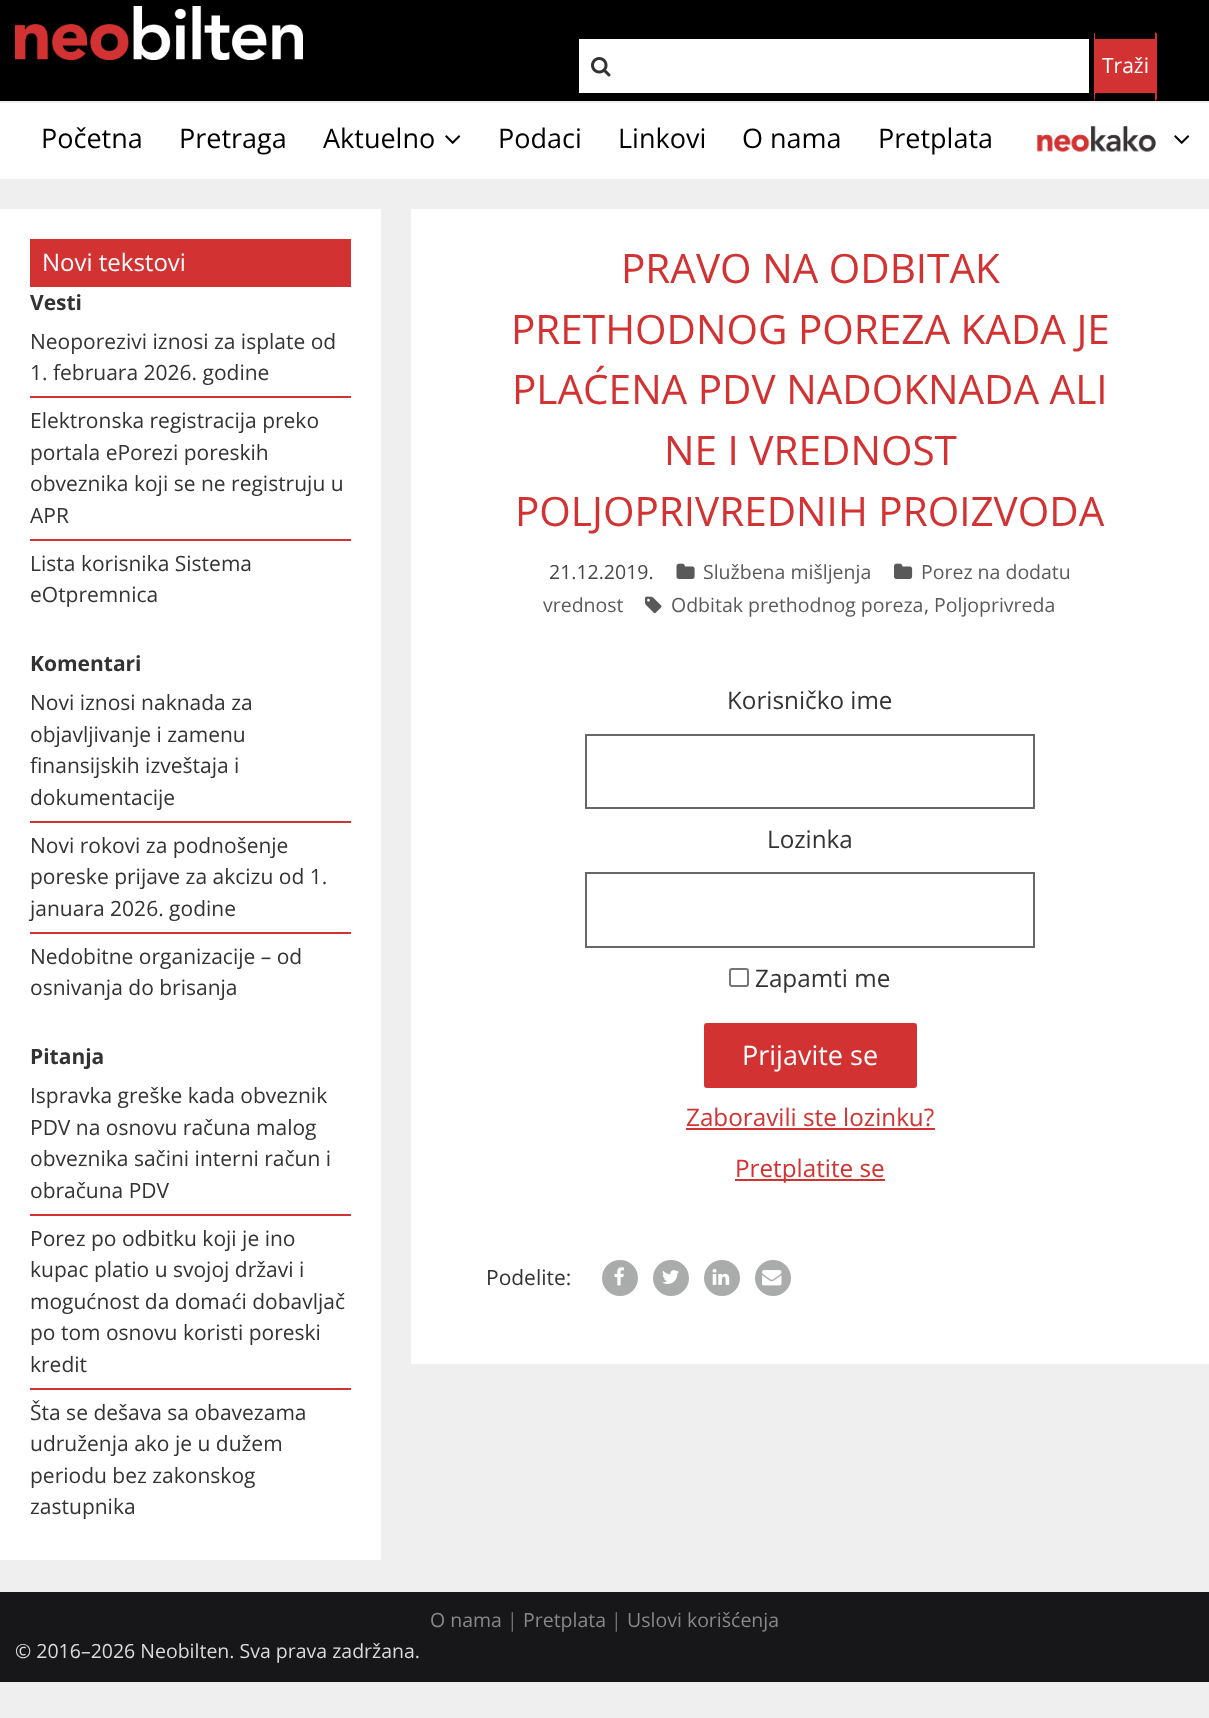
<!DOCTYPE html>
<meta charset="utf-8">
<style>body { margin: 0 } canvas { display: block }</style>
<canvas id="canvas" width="1209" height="1718"></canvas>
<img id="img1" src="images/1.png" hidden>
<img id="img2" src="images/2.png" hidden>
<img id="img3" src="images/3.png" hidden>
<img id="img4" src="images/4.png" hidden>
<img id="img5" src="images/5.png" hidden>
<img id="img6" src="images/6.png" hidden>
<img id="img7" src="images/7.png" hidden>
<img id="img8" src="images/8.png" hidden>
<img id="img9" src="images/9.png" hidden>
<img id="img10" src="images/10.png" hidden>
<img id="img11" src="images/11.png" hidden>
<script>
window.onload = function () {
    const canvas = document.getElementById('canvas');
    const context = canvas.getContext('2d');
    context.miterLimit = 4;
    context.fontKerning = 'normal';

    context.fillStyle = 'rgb(239, 239, 239)';
    context.fillRect(0, 0, 1209, 1718);
    context.fillStyle = 'rgb(0, 0, 0)';
    context.fillRect(0, 0, 1209, 101);
    context.drawImage(document.getElementById('img1'), 15, 6, 288, 54);
    context.fillStyle = 'rgb(255, 255, 255)';
    context.fillRect(579, 39, 510, 54);
    context.drawImage(document.getElementById('img2'), 591, 57, 20, 20);
    context.fillStyle = 'rgb(210, 50, 50)';
    context.beginPath();
    context.roundRect(1094, 32, 63, 69, 3);
    context.fill();
    context.fillStyle = 'rgb(0, 0, 0)';
    context.fillRect(1095, 32, 60, 7);
    context.fillRect(1095, 93, 60, 8);
    context.fillStyle = 'rgb(255, 255, 255)';
    context.fillRect(0, 103, 1209, 76);
    context.drawImage(document.getElementById('img3'), 445, 135, 16, 9);
    context.drawImage(document.getElementById('img4'), 1037, 126, 119, 27);
    context.drawImage(document.getElementById('img3'), 1174, 135, 16, 9);
    context.fillRect(0, 209, 381, 1351);
    context.fillStyle = 'rgb(210, 50, 50)';
    context.fillRect(30, 239, 321, 48);
    context.fillRect(30, 396, 321, 2);
    context.fillRect(30, 539, 321, 2);
    context.fillRect(30, 821, 321, 2);
    context.fillRect(30, 932, 321, 2);
    context.fillRect(30, 1214, 321, 2);
    context.fillRect(30, 1388, 321, 2);
    context.fillStyle = 'rgb(255, 255, 255)';
    context.fillRect(411, 209, 798, 1155);
    context.drawImage(document.getElementById('img5'), 676, 563, 19, 16);
    context.drawImage(document.getElementById('img6'), 894, 563, 19, 16);
    context.drawImage(document.getElementById('img7'), 645, 596, 17, 18);
    context.strokeStyle = 'rgb(103, 103, 103)';
    context.lineWidth = 2;
    context.strokeRect(586, 735, 448, 73);
    context.strokeRect(586, 873, 448, 74);
    context.beginPath();
    context.roundRect(730, 969, 18, 17, 2);
    context.strokeStyle = 'rgb(118, 118, 118)';
    context.stroke();
    context.fillStyle = 'rgb(210, 50, 50)';
    context.beginPath();
    context.roundRect(704, 1023, 213, 65, 3);
    context.fill();
    context.fillRect(686, 1128, 249, 2);
    context.fillRect(735, 1179, 150, 2);
    context.fillStyle = 'rgb(170, 171, 171)';
    context.beginPath();
    context.arc(620, 1278, 18, 0, 2 * Math.PI);
    context.fill();
    context.drawImage(document.getElementById('img8'), 614, 1267, 10, 19);
    context.beginPath();
    context.arc(671, 1278, 18, 0, 2 * Math.PI);
    context.fill();
    context.drawImage(document.getElementById('img9'), 662, 1270, 17, 14);
    context.beginPath();
    context.arc(722, 1278, 18, 0, 2 * Math.PI);
    context.fill();
    context.drawImage(document.getElementById('img10'), 712, 1268, 18, 17);
    context.beginPath();
    context.arc(773, 1278, 18, 0, 2 * Math.PI);
    context.fill();
    context.drawImage(document.getElementById('img11'), 762, 1270, 20, 16);
    context.fillStyle = 'rgb(23, 23, 25)';
    context.fillRect(0, 1592, 1209, 90);
    context.font = '21px Open Sans';
    context.fillStyle = 'rgb(255, 255, 255)';
    context.fillText('Traži', 1102, 73);
    context.font = '27px Open Sans';
    context.fillStyle = 'rgb(0, 0, 0)';
    context.fillText('Početna', 41, 148);
    context.fillText('Pretraga', 179, 148);
    context.fillText('Aktuelno', 323, 148);
    context.fillText('Podaci', 498, 148);
    context.fillText('Linkovi', 618, 148);
    context.fillText('O nama', 742, 148);
    context.fillText('Pretplata', 878, 148);
    context.font = '24px Open Sans';
    context.fillStyle = 'rgb(255, 255, 255)';
    context.fillText('Novi tekstovi', 42, 271);
    context.font = 'bold 21px Open Sans';
    context.fillStyle = 'rgb(51, 51, 51)';
    context.fillText('Vesti', 30, 310);
    context.font = '21px Open Sans';
    context.fillText('Neoporezivi iznosi za isplate od', 30, 349);
    context.fillText('1. februara 2026. godine', 30, 380);
    context.fillText('Elektronska registracija preko', 30, 428);
    context.fillText('portala ePorezi poreskih', 30, 460);
    context.fillText('obveznika koji se ne registruju u', 30, 491);
    context.fillText('APR', 30, 523);
    context.fillText('Lista korisnika Sistema', 30, 571);
    context.fillText('eOtpremnica', 30, 602);
    context.font = 'bold 21px Open Sans';
    context.fillText('Komentari', 30, 671);
    context.font = '21px Open Sans';
    context.fillText('Novi iznosi naknada za', 30, 710);
    context.fillText('objavljivanje i zamenu', 30, 742);
    context.fillText('finansijskih izveštaja i', 30, 773);
    context.fillText('dokumentacije', 30, 805);
    context.fillText('Novi rokovi za podnošenje', 30, 853);
    context.fillText('poreske prijave za akcizu od 1.', 30, 884);
    context.fillText('januara 2026. godine', 30, 916);
    context.fillText('Nedobitne organizacije – od', 30, 964);
    context.fillText('osnivanja do brisanja', 30, 995);
    context.font = 'bold 21px Open Sans';
    context.fillText('Pitanja', 30, 1064);
    context.font = '21px Open Sans';
    context.fillText('Ispravka greške kada obveznik', 30, 1103);
    context.fillText('PDV na osnovu računa malog', 30, 1135);
    context.fillText('obveznika sačini interni račun i', 30, 1166);
    context.fillText('obračuna PDV', 30, 1198);
    context.fillText('Porez po odbitku koji je ino', 30, 1246);
    context.fillText('kupac platio u svojoj državi i', 30, 1277);
    context.fillText('mogućnost da domaći dobavljač', 30, 1309);
    context.fillText('po tom osnovu koristi poreski', 30, 1340);
    context.fillText('kredit', 30, 1372);
    context.fillText('Šta se dešava sa obavezama', 30, 1420);
    context.fillText('udruženja ako je u dužem', 30, 1451);
    context.fillText('periodu bez zakonskog', 30, 1483);
    context.fillText('zastupnika', 30, 1514);
    context.font = '40.5px Open Sans';
    context.fillStyle = 'rgb(210, 50, 50)';
    context.fillText('PRAVO NA ODBITAK', 621, 283);
    context.fillText('PRETHODNOG POREZA KADA JE', 511, 344);
    context.fillText('PLAĆENA PDV NADOKNADA ALI', 512, 404);
    context.fillText('NE I VREDNOST', 664, 465);
    context.fillText('POLJOPRIVREDNIH PROIZVODA', 515, 526);
    context.font = '19.5px Open Sans';
    context.fillStyle = 'rgb(71, 71, 71)';
    context.fillText('21.12.2019.', 549, 579);
    context.fillStyle = 'rgb(90, 90, 90)';
    context.fillText('Službena mišljenja', 703, 579);
    context.fillText('Porez na dodatu', 921, 579);
    context.fillText('vrednost', 543, 612);
    context.fillText('Odbitak prethodnog poreza', 671, 612);
    context.fillStyle = 'rgb(71, 71, 71)';
    context.fillText(',', 924, 612);
    context.fillStyle = 'rgb(90, 90, 90)';
    context.fillText('Poljoprivreda', 934, 612);
    context.font = '24.25px Open Sans';
    context.fillStyle = 'rgb(51, 51, 51)';
    context.fillText('Korisničko ime', 727, 709);
    context.fillText('Lozinka', 767, 848);
    context.fillText('Zapamti me', 755, 987);
    context.font = '27px Open Sans';
    context.fillStyle = 'rgb(255, 255, 255)';
    context.fillText('Prijavite se', 742, 1065);
    context.font = '24.25px Open Sans';
    context.fillStyle = 'rgb(210, 50, 50)';
    context.fillText('Zaboravili ste lozinku?', 686, 1126);
    context.fillText('Pretplatite se', 735, 1177);
    context.font = '21px Open Sans';
    context.fillStyle = 'rgb(51, 51, 51)';
    context.fillText('Podelite:', 486, 1285);
    context.font = '19.5px Open Sans';
    context.fillStyle = 'rgb(136, 136, 136)';
    context.fillText('O nama', 430, 1627);
    context.fillStyle = 'rgb(113, 113, 113)';
    context.fillText('|', 507, 1627);
    context.fillStyle = 'rgb(136, 136, 136)';
    context.fillText('Pretplata', 523, 1627);
    context.fillStyle = 'rgb(113, 113, 113)';
    context.fillText('|', 611, 1627);
    context.fillStyle = 'rgb(136, 136, 136)';
    context.fillText('Uslovi korišćenja', 627, 1627);
    context.fillStyle = 'rgb(218, 218, 218)';
    context.fillText('© 2016–2026 Neobilten. Sva prava zadržana.', 15, 1658);
};
</script>
